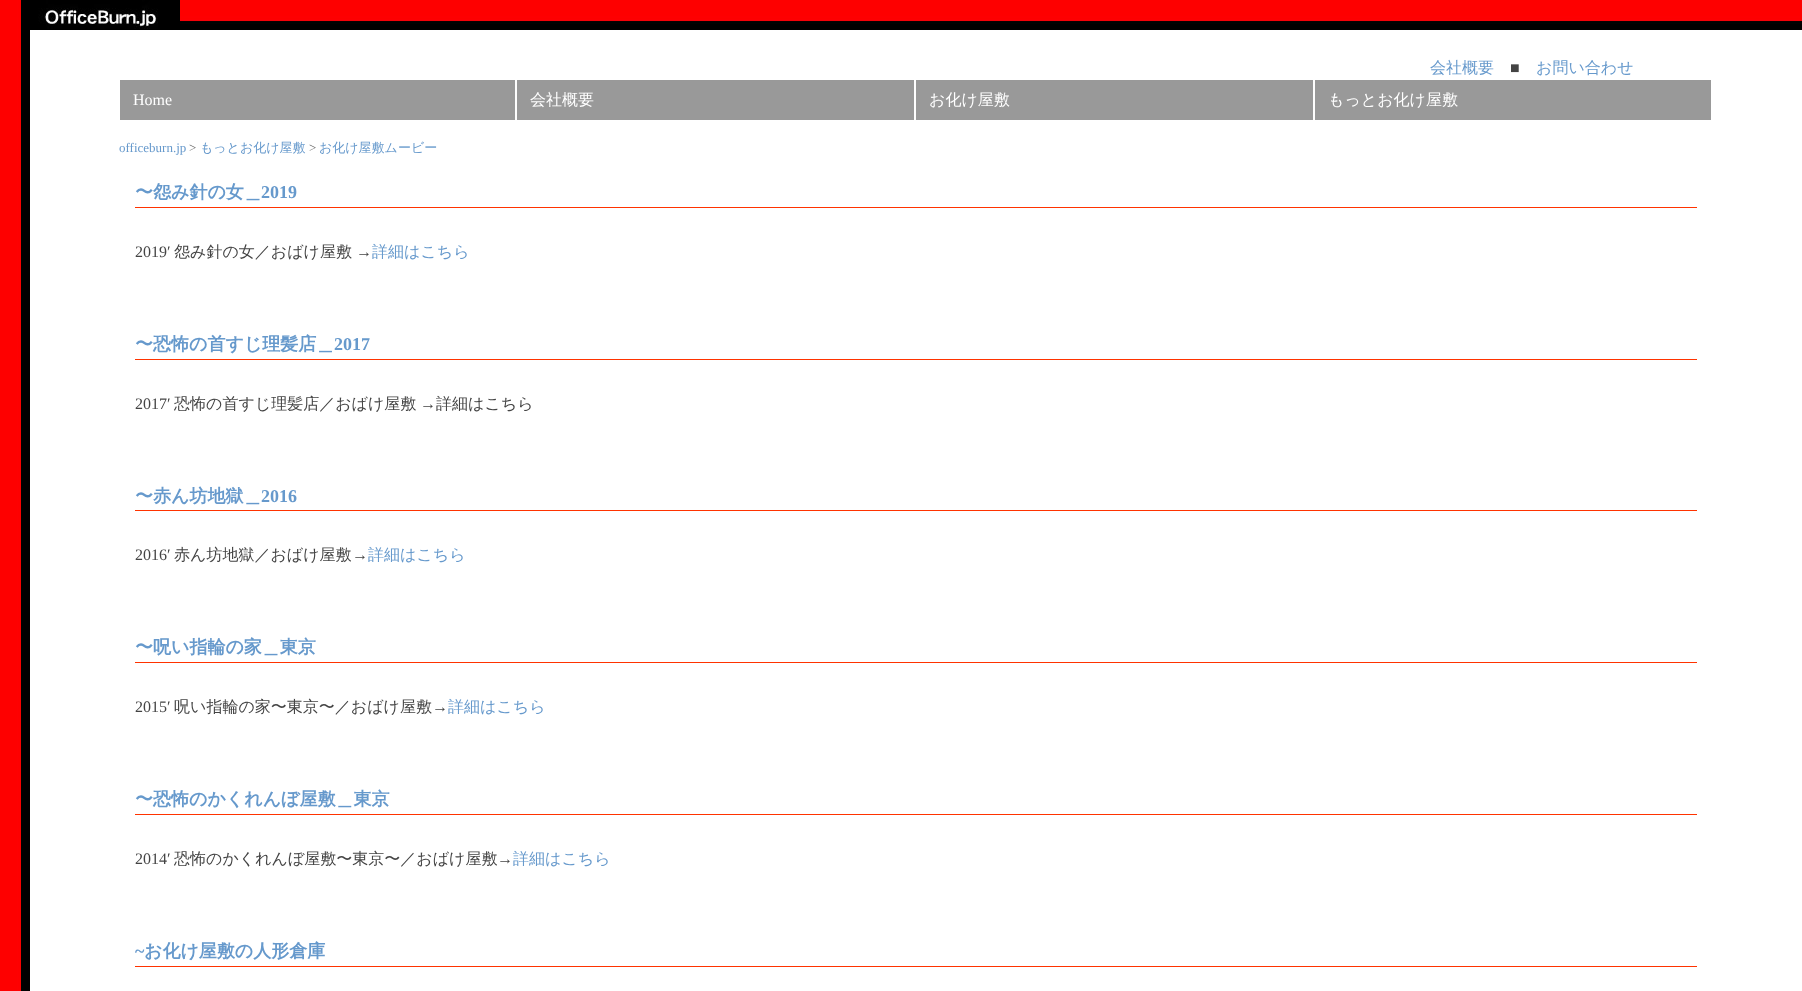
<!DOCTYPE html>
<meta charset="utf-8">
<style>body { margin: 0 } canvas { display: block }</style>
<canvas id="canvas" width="1802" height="991"></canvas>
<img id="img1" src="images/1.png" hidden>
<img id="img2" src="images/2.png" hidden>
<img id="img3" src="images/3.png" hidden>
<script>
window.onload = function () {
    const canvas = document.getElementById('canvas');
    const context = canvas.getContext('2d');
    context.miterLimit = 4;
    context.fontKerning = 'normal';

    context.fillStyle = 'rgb(255, 255, 255)';
    context.fillRect(0, 0, 1802, 991);
    context.drawImage(document.getElementById('img1'), 0, 0, 30, 991);
    context.drawImage(document.getElementById('img2'), 30, 0, 1772, 30);
    context.drawImage(document.getElementById('img3'), 30, 0, 150, 29);
    context.fillStyle = 'rgb(153, 153, 153)';
    context.fillRect(120, 80, 395, 40);
    context.fillRect(517, 80, 397, 40);
    context.fillRect(916, 80, 397, 40);
    context.fillRect(1315, 80, 396, 40);
    context.fillStyle = 'rgb(255, 51, 0)';
    context.fillRect(135, 207, 1562, 1);
    context.fillRect(135, 359, 1562, 1);
    context.fillRect(135, 510, 1562, 1);
    context.fillRect(135, 662, 1562, 1);
    context.fillRect(135, 814, 1562, 1);
    context.fillRect(135, 966, 1562, 1);
    context.font = '500 16px WenQuanYi Zen Hei';
    context.fillStyle = 'rgb(102, 153, 204)';
    context.fillText('会社概要', 1430, 73);
    context.font = '16px Liberation Serif';
    context.fillStyle = 'rgb(68, 68, 68)';
    context.fillText('■', 1510, 73);
    context.font = '500 16px WenQuanYi Zen Hei';
    context.fillStyle = 'rgb(102, 153, 204)';
    context.fillText('お問い合わせ', 1536, 73);
    context.font = '16px Liberation Serif';
    context.fillStyle = 'rgb(255, 255, 255)';
    context.fillText('Home', 133, 105);
    context.font = '500 16px WenQuanYi Zen Hei';
    context.fillText('会社概要', 530, 105);
    context.fillText('お化け屋敷', 929, 105);
    context.fillText('もっとお化け屋敷', 1328, 105);
    context.font = '13px Liberation Serif';
    context.fillStyle = 'rgb(102, 153, 204)';
    context.fillText('officeburn.jp', 119, 152);
    context.fillStyle = 'rgb(102, 102, 102)';
    context.fillText('>', 189, 152);
    context.font = '500 13px WenQuanYi Zen Hei';
    context.fillStyle = 'rgb(102, 153, 204)';
    context.fillText('もっとお化け屋敷', 200, 152);
    context.font = '13px Liberation Serif';
    context.fillStyle = 'rgb(102, 102, 102)';
    context.fillText('>', 309, 152);
    context.font = '500 13px WenQuanYi Zen Hei';
    context.fillStyle = 'rgb(102, 153, 204)';
    context.fillText('お化け屋敷ムービー', 319, 152);
    context.font = 'bold 18px WenQuanYi Zen Hei';
    context.fillText('〜怨み針の女＿', 135, 198);
    context.font = 'bold 18px Liberation Serif';
    context.fillText('2019', 261, 198);
    context.font = '16px Liberation Serif';
    context.fillStyle = 'rgb(68, 68, 68)';
    context.fillText('2019′', 135, 257);
    context.font = '500 16px WenQuanYi Zen Hei';
    context.fillText('怨み針の女／おばけ屋敷', 174, 257);
    context.font = '16px Liberation Serif';
    context.fillText('→', 356, 257);
    context.font = '500 16px WenQuanYi Zen Hei';
    context.fillStyle = 'rgb(102, 153, 204)';
    context.fillText('詳細はこちら', 372, 257);
    context.font = 'bold 18px WenQuanYi Zen Hei';
    context.fillText('〜恐怖の首すじ理髪店＿', 135, 350);
    context.font = 'bold 18px Liberation Serif';
    context.fillText('2017', 334, 350);
    context.font = '16px Liberation Serif';
    context.fillStyle = 'rgb(68, 68, 68)';
    context.fillText('2017′', 135, 409);
    context.font = '500 16px WenQuanYi Zen Hei';
    context.fillText('恐怖の首すじ理髪店／おばけ屋敷', 174, 409);
    context.font = '16px Liberation Serif';
    context.fillText('→', 420, 409);
    context.font = '500 16px WenQuanYi Zen Hei';
    context.fillText('詳細はこちら', 436, 409);
    context.font = 'bold 18px WenQuanYi Zen Hei';
    context.fillStyle = 'rgb(102, 153, 204)';
    context.fillText('〜赤ん坊地獄＿', 135, 502);
    context.font = 'bold 18px Liberation Serif';
    context.fillText('2016', 261, 502);
    context.font = '16px Liberation Serif';
    context.fillStyle = 'rgb(68, 68, 68)';
    context.fillText('2016′', 135, 560);
    context.font = '500 16px WenQuanYi Zen Hei';
    context.fillText('赤ん坊地獄／おばけ屋敷', 174, 560);
    context.font = '16px Liberation Serif';
    context.fillText('→', 352, 560);
    context.font = '500 16px WenQuanYi Zen Hei';
    context.fillStyle = 'rgb(102, 153, 204)';
    context.fillText('詳細はこちら', 368, 560);
    context.font = 'bold 18px WenQuanYi Zen Hei';
    context.fillText('〜呪い指輪の家＿東京', 135, 653);
    context.font = '16px Liberation Serif';
    context.fillStyle = 'rgb(68, 68, 68)';
    context.fillText('2015′', 135, 712);
    context.font = '500 16px WenQuanYi Zen Hei';
    context.fillText('呪い指輪の家〜東京〜／おばけ屋敷', 174, 712);
    context.font = '16px Liberation Serif';
    context.fillText('→', 432, 712);
    context.font = '500 16px WenQuanYi Zen Hei';
    context.fillStyle = 'rgb(102, 153, 204)';
    context.fillText('詳細はこちら', 448, 712);
    context.font = 'bold 18px WenQuanYi Zen Hei';
    context.fillText('〜恐怖のかくれんぼ屋敷＿東京', 135, 805);
    context.font = '16px Liberation Serif';
    context.fillStyle = 'rgb(68, 68, 68)';
    context.fillText('2014′', 135, 864);
    context.font = '500 16px WenQuanYi Zen Hei';
    context.fillText('恐怖のかくれんぼ屋敷〜東京〜／おばけ屋敷', 174, 864);
    context.font = '16px Liberation Serif';
    context.fillText('→', 497, 864);
    context.font = '500 16px WenQuanYi Zen Hei';
    context.fillStyle = 'rgb(102, 153, 204)';
    context.fillText('詳細はこちら', 513, 864);
    context.font = 'bold 18px Liberation Serif';
    context.fillText('~', 135, 957);
    context.font = 'bold 18px WenQuanYi Zen Hei';
    context.fillText('お化け屋敷の人形倉庫', 144, 957);
};
</script>
